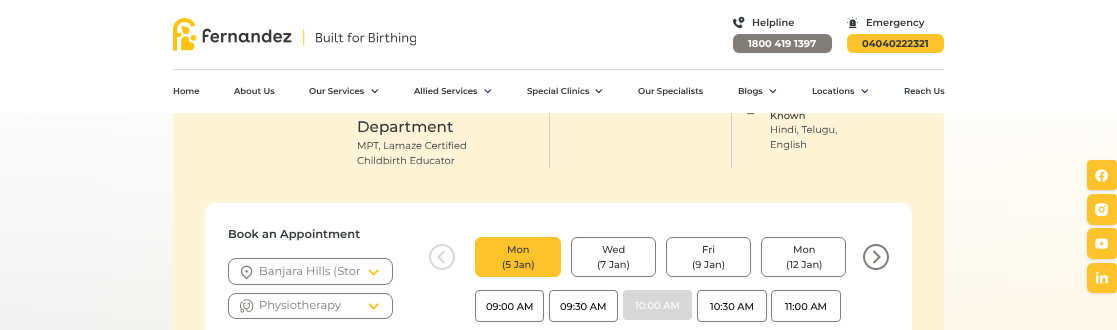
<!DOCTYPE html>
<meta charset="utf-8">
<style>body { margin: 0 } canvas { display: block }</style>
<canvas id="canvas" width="1117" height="330"></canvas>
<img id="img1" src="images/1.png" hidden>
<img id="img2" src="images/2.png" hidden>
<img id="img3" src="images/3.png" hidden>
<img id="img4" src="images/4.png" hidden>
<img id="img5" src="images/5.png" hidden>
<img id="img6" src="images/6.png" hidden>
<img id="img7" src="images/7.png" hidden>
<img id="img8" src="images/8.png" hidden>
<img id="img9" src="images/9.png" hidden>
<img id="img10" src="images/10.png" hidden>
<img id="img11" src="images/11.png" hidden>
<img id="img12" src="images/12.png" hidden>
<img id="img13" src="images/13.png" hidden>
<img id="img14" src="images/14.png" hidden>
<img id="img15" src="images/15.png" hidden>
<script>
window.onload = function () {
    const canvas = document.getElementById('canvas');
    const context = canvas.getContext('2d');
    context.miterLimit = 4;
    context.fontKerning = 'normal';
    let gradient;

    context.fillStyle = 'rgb(255, 255, 255)';
    context.fillRect(0, 0, 1117, 330);
    context.fillStyle = 'rgb(214, 215, 215)';
    context.fillRect(173, 69, 771, 1);
    context.drawImage(document.getElementById('img1'), 173, 18, 243, 33);
    context.drawImage(document.getElementById('img2'), 733, 16, 12, 13);
    context.fillStyle = 'rgb(130, 125, 119)';
    context.beginPath();
    context.roundRect(733, 34, 99, 19, 6);
    context.fill();
    context.drawImage(document.getElementById('img3'), 847, 17, 11, 11);
    context.fillStyle = 'rgb(254, 194, 43)';
    context.beginPath();
    context.roundRect(847, 34, 97, 19, 6);
    context.fill();
    context.drawImage(document.getElementById('img4'), 371, 89, 8, 4);
    context.drawImage(document.getElementById('img5'), 484, 89, 7, 4);
    context.drawImage(document.getElementById('img4'), 595, 89, 8, 4);
    context.drawImage(document.getElementById('img4'), 769, 89, 8, 4);
    context.drawImage(document.getElementById('img4'), 861, 89, 8, 4);
    gradient = context.createLinearGradient(0, 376, 1117, 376);
    gradient.addColorStop(0, 'rgb(236, 235, 234)');
    gradient.addColorStop(1, 'rgb(255, 245, 220)');
    context.fillStyle = gradient;
    context.fillRect(0, 113, 1117, 217);
    gradient = context.createLinearGradient(559, 20, 559, 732);
    gradient.addColorStop(0, 'rgb(255, 255, 255)');
    gradient.addColorStop(0.3, 'rgba(255, 255, 255, 0.6)');
    gradient.addColorStop(0.6, 'rgba(255, 255, 255, 0)');
    context.fillStyle = gradient;
    context.fillRect(0, 113, 1117, 217);
    context.fillStyle = 'rgb(255, 244, 216)';
    context.fillRect(173, 113, 771, 217);
    context.fillStyle = 'rgb(214, 206, 184)';
    context.fillRect(549, 113, 1, 55);
    context.fillRect(731, 113, 1, 55);
    context.drawImage(document.getElementById('img6'), 747, 113, 8, 2);
    context.fillStyle = 'rgb(255, 255, 255)';
    context.beginPath();
    context.roundRect(205, 203, 707, 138, 11);
    context.fill();
    context.beginPath();
    context.roundRect(228.5, 258.5, 164, 26, 7.5);
    context.strokeStyle = 'rgb(130, 125, 119)';
    context.stroke();
    context.drawImage(document.getElementById('img7'), 240, 265, 13, 15);
    context.drawImage(document.getElementById('img8'), 368, 269, 11, 7);
    context.beginPath();
    context.roundRect(228.5, 293.5, 164, 25, 7.5);
    context.stroke();
    context.drawImage(document.getElementById('img9'), 240, 299, 14, 14);
    context.drawImage(document.getElementById('img8'), 368, 303, 11, 7);
    context.drawImage(document.getElementById('img10'), 429, 244, 26, 26);
    context.fillStyle = 'rgb(254, 194, 43)';
    context.beginPath();
    context.roundRect(475.5, 237.5, 85, 39, 5.5);
    context.fill();
    context.strokeStyle = 'rgb(254, 194, 43)';
    context.stroke();
    context.beginPath();
    context.roundRect(571.5, 237.5, 84, 39, 5.5);
    context.strokeStyle = 'rgb(130, 125, 119)';
    context.stroke();
    context.beginPath();
    context.roundRect(666.5, 237.5, 84, 39, 5.5);
    context.stroke();
    context.beginPath();
    context.roundRect(761.5, 237.5, 84, 39, 5.5);
    context.stroke();
    context.drawImage(document.getElementById('img11'), 863, 244, 26, 26);
    context.beginPath();
    context.roundRect(475.5, 290.5, 68, 31, 3.5);
    context.stroke();
    context.beginPath();
    context.roundRect(549.5, 290.5, 68, 31, 3.5);
    context.stroke();
    context.fillStyle = 'rgb(214, 215, 215)';
    context.beginPath();
    context.roundRect(623, 290, 69, 30, 4);
    context.fill();
    context.beginPath();
    context.roundRect(697.5, 290.5, 69, 31, 3.5);
    context.stroke();
    context.beginPath();
    context.roundRect(771.5, 290.5, 69, 31, 3.5);
    context.stroke();
    context.fillStyle = 'rgba(0, 0, 0, 0.1)';
    context.filter = 'blur(1px)';
    context.beginPath();
    context.roundRect(1088, 162, 28, 28, 3);
    context.fill();
    context.filter = 'none';
    context.filter = 'blur(1.5px)';
    context.beginPath();
    context.roundRect(1087, 161, 30, 30, 4);
    context.fill();
    context.filter = 'none';
    context.fillStyle = 'rgb(254, 194, 43)';
    context.beginPath();
    context.roundRect(1087, 160, 30, 30, 4);
    context.fill();
    context.drawImage(document.getElementById('img12'), 1095, 169, 13, 13);
    context.fillStyle = 'rgba(0, 0, 0, 0.1)';
    context.filter = 'blur(1px)';
    context.beginPath();
    context.roundRect(1088, 196, 28, 29, 5);
    context.fill();
    context.filter = 'none';
    context.filter = 'blur(1.5px)';
    context.beginPath();
    context.roundRect(1087, 195, 30, 31, 6);
    context.fill();
    context.filter = 'none';
    context.fillStyle = 'rgb(254, 194, 43)';
    context.beginPath();
    context.roundRect(1087, 194, 30, 31, [6, 4, 4, 6]);
    context.fill();
    context.drawImage(document.getElementById('img13'), 1095, 203, 13, 13);
    context.fillStyle = 'rgba(0, 0, 0, 0.1)';
    context.filter = 'blur(1px)';
    context.beginPath();
    context.roundRect(1088, 230, 28, 29, 5);
    context.fill();
    context.filter = 'none';
    context.filter = 'blur(1.5px)';
    context.beginPath();
    context.roundRect(1087, 229, 30, 31, 6);
    context.fill();
    context.filter = 'none';
    context.fillStyle = 'rgb(254, 194, 43)';
    context.beginPath();
    context.roundRect(1087, 228, 30, 31, [6, 4, 4, 6]);
    context.fill();
    context.drawImage(document.getElementById('img14'), 1095, 238, 13, 11);
    context.fillStyle = 'rgba(0, 0, 0, 0.1)';
    context.filter = 'blur(1px)';
    context.beginPath();
    context.roundRect(1088, 265, 28, 28, 5);
    context.fill();
    context.filter = 'none';
    context.filter = 'blur(1.5px)';
    context.beginPath();
    context.roundRect(1087, 264, 30, 30, 6);
    context.fill();
    context.filter = 'none';
    context.fillStyle = 'rgb(254, 194, 43)';
    context.beginPath();
    context.roundRect(1087, 263, 30, 30, [6, 4, 4, 6]);
    context.fill();
    context.drawImage(document.getElementById('img15'), 1095, 271, 13, 13);
    context.font = '600 9.9px Montserrat';
    context.fillStyle = 'rgb(49, 54, 56)';
    context.fillText('Helpline', 752, 26);
    context.font = 'bold 9.9px Montserrat';
    context.fillStyle = 'rgb(255, 255, 255)';
    context.fillText('1800 419 1397', 748, 47);
    context.font = '600 9.9px Montserrat';
    context.fillStyle = 'rgb(49, 54, 56)';
    context.fillText('Emergency', 866, 26);
    context.font = 'bold 9.9px Montserrat';
    context.fillText('04040222321', 862, 47);
    context.font = '600 8.5px Montserrat';
    context.fillText('Home', 173, 94);
    context.fillText('About Us', 234, 94);
    context.fillText('Our Services', 309, 94);
    context.fillText('Allied Services', 414, 94);
    context.fillText('Special Clinics', 527, 94);
    context.fillText('Our Specialists', 638, 94);
    context.fillText('Blogs', 738, 94);
    context.fillText('Locations', 812, 94);
    context.fillText('Reach Us', 904, 94);
    context.font = '500 15.25px Montserrat';
    context.fillText('Department', 357, 132);
    context.font = '9.9px Montserrat';
    context.fillText('MPT, Lamaze Certified', 357, 149);
    context.fillText('Childbirth Educator', 357, 164);
    context.font = '500 9.9px Montserrat';
    context.fillText('Known', 770, 119);
    context.fillStyle = 'rgb(255, 255, 255)';
    context.fillRect(771, 112, 6, 1);
    context.font = '9.9px Montserrat';
    context.fillStyle = 'rgb(49, 54, 56)';
    context.fillText('Hindi, Telugu,', 770, 133);
    context.fillText('English', 770, 148);
    context.font = '600 11.5px Montserrat';
    context.fillText('Book an Appointment', 228, 238);
    context.font = '11.5px Montserrat';
    context.fillStyle = 'rgb(130, 125, 119)';
    context.fillText('Banjara Hills (Stor', 259, 275);
    context.fillText('Physiotherapy', 259, 309);
    context.font = '500 9.9px Montserrat';
    context.fillStyle = 'rgb(49, 54, 56)';
    context.fillText('Mon', 507, 253);
    context.fillText('(5 Jan)', 502, 268);
    context.fillText('Wed', 602, 253);
    context.fillText('(7 Jan)', 597, 268);
    context.fillText('Fri', 702, 253);
    context.fillText('(9 Jan)', 692, 268);
    context.fillText('Mon', 793, 253);
    context.fillText('(12 Jan)', 786, 268);
    context.fillStyle = 'rgb(0, 0, 0)';
    context.fillText('09:00 AM', 486, 310);
    context.fillText('09:30 AM', 560, 310);
    context.fillStyle = 'rgb(255, 255, 255)';
    context.fillText('10:00 AM', 635, 309);
    context.fillStyle = 'rgb(0, 0, 0)';
    context.fillText('10:30 AM', 710, 310);
    context.fillText('11:00 AM', 785, 310);
};
</script>
